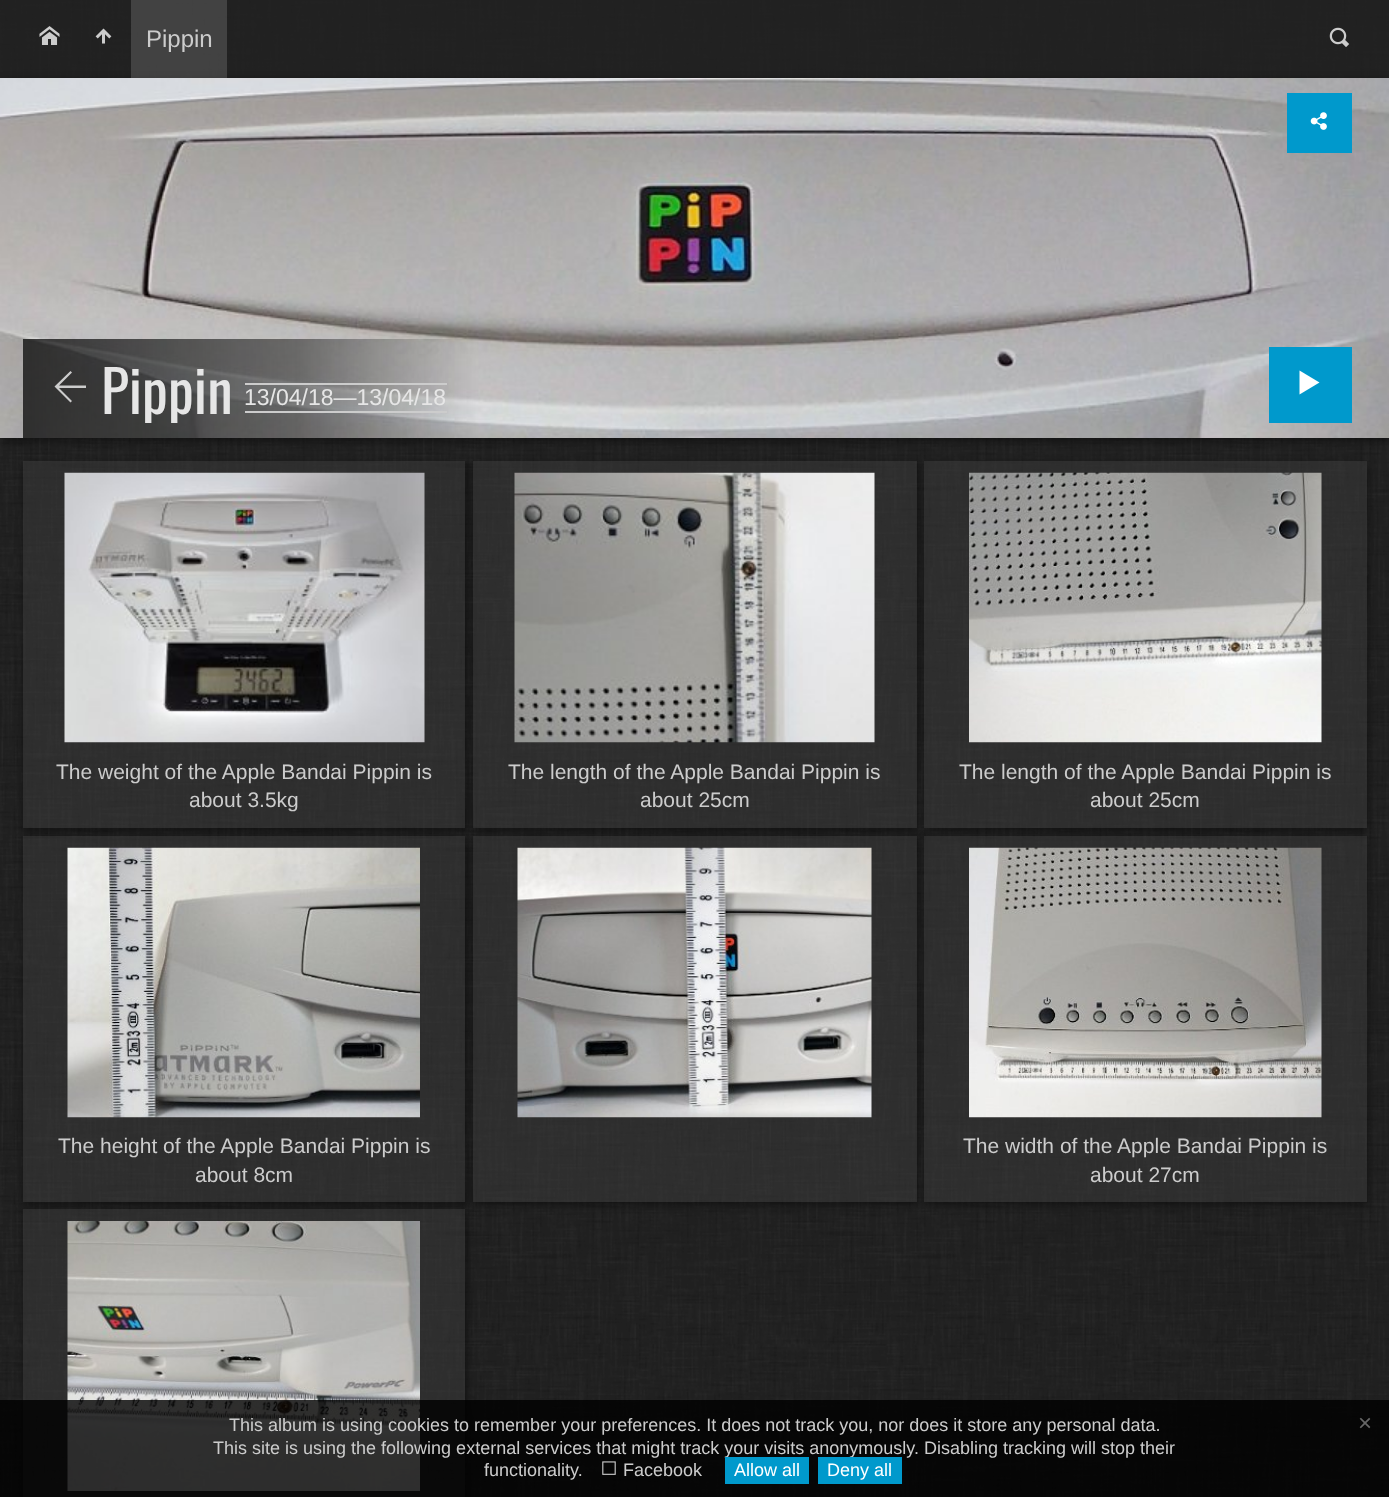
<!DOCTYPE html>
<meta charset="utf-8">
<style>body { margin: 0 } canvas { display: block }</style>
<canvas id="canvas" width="1389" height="1497"></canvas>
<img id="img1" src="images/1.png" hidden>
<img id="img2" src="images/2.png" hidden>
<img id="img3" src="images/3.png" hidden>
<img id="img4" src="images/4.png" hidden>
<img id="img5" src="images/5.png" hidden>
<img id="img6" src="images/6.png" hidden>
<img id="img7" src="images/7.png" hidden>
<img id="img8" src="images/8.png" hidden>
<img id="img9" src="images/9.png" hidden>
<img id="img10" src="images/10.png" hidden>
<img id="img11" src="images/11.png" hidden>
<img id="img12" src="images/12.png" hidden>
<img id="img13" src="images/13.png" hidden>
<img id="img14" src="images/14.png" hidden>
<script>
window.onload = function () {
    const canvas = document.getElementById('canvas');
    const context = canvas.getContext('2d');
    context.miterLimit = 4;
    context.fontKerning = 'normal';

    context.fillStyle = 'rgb(34, 34, 34)';
    context.fillRect(0, 0, 1389, 1497);
    context.drawImage(document.getElementById('img1'), 0, 0, 1389, 1497);
    context.fillStyle = 'rgba(34, 34, 34, 0.8)';
    context.fillRect(0, 0, 1389, 78);
    context.drawImage(document.getElementById('img2'), 39, 26, 21, 19);
    context.drawImage(document.getElementById('img3'), 95, 28, 17, 16);
    context.fillStyle = 'rgba(0, 0, 0, 0.45)';
    context.filter = 'blur(4.5px)';
    context.beginPath();
    context.rect(2, 81, 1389, 360);
    context.fill();
    context.filter = 'none';
    context.fillStyle = 'rgba(255, 255, 255, 0.15)';
    context.fillRect(131, 0, 96, 78);
    context.drawImage(document.getElementById('img4'), 1329, 27, 21, 20);
    context.drawImage(document.getElementById('img5'), 0, 78, 1389, 360);
    context.fillStyle = 'rgb(0, 153, 204)';
    context.fillRect(1287, 93, 65, 60);
    context.drawImage(document.getElementById('img6'), 1310, 112, 17, 18);
    context.fillStyle = 'rgb(204, 204, 204)';
    context.beginPath();
    context.moveTo(54.5, 386.5);
    context.lineTo(70.5, 371);
    context.lineTo(72, 372.5);
    context.lineTo(59, 385.5);
    context.lineTo(86, 385.5);
    context.lineTo(86, 388);
    context.lineTo(59, 388);
    context.lineTo(72, 401);
    context.lineTo(70.5, 402.5);
    context.closePath();
    context.fill();
    context.fillRect(245, 383, 202, 2);
    context.fillRect(245, 411, 202, 2);
    context.fillStyle = 'rgb(0, 153, 204)';
    context.fillRect(1269, 347, 83, 76);
    context.fillStyle = 'rgb(255, 255, 255)';
    context.beginPath();
    context.moveTo(1319.5, 382.5);
    context.lineTo(1299.5, 394.5);
    context.lineTo(1299.5, 370.5);
    context.closePath();
    context.fill();
    context.save();
    context.beginPath();
    context.moveTo(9, 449);
    context.lineTo(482, 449);
    context.lineTo(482, 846);
    context.lineTo(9, 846);
    context.closePath();
    context.moveTo(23, 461);
    context.lineTo(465, 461);
    context.lineTo(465, 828);
    context.lineTo(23, 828);
    context.closePath();
    context.clip('evenodd');
    context.fillStyle = 'rgba(0, 0, 0, 0.45)';
    context.filter = 'blur(4.5px)';
    context.beginPath();
    context.rect(24, 464, 443, 367);
    context.fill();
    context.filter = 'none';
    context.restore();
    context.fillStyle = 'rgba(68, 68, 68, 0.4)';
    context.fillRect(23, 461, 442, 367);
    context.drawImage(document.getElementById('img7'), 64, 472, 361, 271);
    context.save();
    context.beginPath();
    context.moveTo(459, 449);
    context.lineTo(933, 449);
    context.lineTo(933, 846);
    context.lineTo(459, 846);
    context.closePath();
    context.moveTo(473, 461);
    context.lineTo(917, 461);
    context.lineTo(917, 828);
    context.lineTo(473, 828);
    context.closePath();
    context.clip('evenodd');
    context.fillStyle = 'rgba(0, 0, 0, 0.45)';
    context.filter = 'blur(4.5px)';
    context.beginPath();
    context.rect(474, 464, 444, 367);
    context.fill();
    context.filter = 'none';
    context.restore();
    context.fillRect(473, 461, 444, 367);
    context.drawImage(document.getElementById('img8'), 514, 472, 361, 271);
    context.save();
    context.beginPath();
    context.moveTo(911, 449);
    context.lineTo(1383, 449);
    context.lineTo(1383, 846);
    context.lineTo(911, 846);
    context.closePath();
    context.moveTo(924, 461);
    context.lineTo(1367, 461);
    context.lineTo(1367, 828);
    context.lineTo(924, 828);
    context.closePath();
    context.clip('evenodd');
    context.fillStyle = 'rgba(0, 0, 0, 0.45)';
    context.filter = 'blur(4.5px)';
    context.beginPath();
    context.rect(926, 464, 442, 367);
    context.fill();
    context.filter = 'none';
    context.restore();
    context.fillRect(924, 461, 443, 367);
    context.drawImage(document.getElementById('img9'), 969, 472, 353, 271);
    context.save();
    context.beginPath();
    context.moveTo(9, 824);
    context.lineTo(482, 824);
    context.lineTo(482, 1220);
    context.lineTo(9, 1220);
    context.closePath();
    context.moveTo(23, 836);
    context.lineTo(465, 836);
    context.lineTo(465, 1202);
    context.lineTo(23, 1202);
    context.closePath();
    context.clip('evenodd');
    context.fillStyle = 'rgba(0, 0, 0, 0.45)';
    context.filter = 'blur(4.5px)';
    context.beginPath();
    context.rect(24, 839, 443, 366);
    context.fill();
    context.filter = 'none';
    context.restore();
    context.fillRect(23, 836, 442, 366);
    context.drawImage(document.getElementById('img10'), 67, 847, 353, 271);
    context.save();
    context.beginPath();
    context.moveTo(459, 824);
    context.lineTo(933, 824);
    context.lineTo(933, 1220);
    context.lineTo(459, 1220);
    context.closePath();
    context.moveTo(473, 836);
    context.lineTo(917, 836);
    context.lineTo(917, 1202);
    context.lineTo(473, 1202);
    context.closePath();
    context.clip('evenodd');
    context.fillStyle = 'rgba(0, 0, 0, 0.45)';
    context.filter = 'blur(4.5px)';
    context.beginPath();
    context.rect(474, 839, 444, 366);
    context.fill();
    context.filter = 'none';
    context.restore();
    context.fillRect(473, 836, 444, 366);
    context.drawImage(document.getElementById('img11'), 517, 847, 355, 271);
    context.save();
    context.beginPath();
    context.moveTo(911, 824);
    context.lineTo(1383, 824);
    context.lineTo(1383, 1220);
    context.lineTo(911, 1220);
    context.closePath();
    context.moveTo(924, 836);
    context.lineTo(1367, 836);
    context.lineTo(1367, 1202);
    context.lineTo(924, 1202);
    context.closePath();
    context.clip('evenodd');
    context.fillStyle = 'rgba(0, 0, 0, 0.45)';
    context.filter = 'blur(4.5px)';
    context.beginPath();
    context.rect(926, 839, 442, 366);
    context.fill();
    context.filter = 'none';
    context.restore();
    context.fillRect(924, 836, 443, 366);
    context.drawImage(document.getElementById('img12'), 969, 847, 353, 271);
    context.save();
    context.beginPath();
    context.moveTo(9, 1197);
    context.lineTo(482, 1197);
    context.lineTo(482, 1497);
    context.lineTo(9, 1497);
    context.closePath();
    context.moveTo(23, 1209);
    context.lineTo(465, 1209);
    context.lineTo(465, 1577);
    context.lineTo(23, 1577);
    context.closePath();
    context.clip('evenodd');
    context.fillStyle = 'rgba(0, 0, 0, 0.45)';
    context.filter = 'blur(4.5px)';
    context.beginPath();
    context.rect(24, 1212, 443, 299);
    context.fill();
    context.filter = 'none';
    context.restore();
    context.fillRect(23, 1209, 442, 288);
    context.drawImage(document.getElementById('img13'), 67, 1221, 353, 270);
    context.fillStyle = 'rgba(0, 0, 0, 0.8)';
    context.fillRect(0, 1400, 1389, 97);
    context.drawImage(document.getElementById('img14'), 602, 1461, 14, 14);
    context.font = '24px Liberation Sans';
    context.fillStyle = 'rgb(204, 204, 204)';
    context.fillText('Pippin', 146, 47);
    context.save();
    context.beginPath();
    context.rect(101, 354, 346, 69);
    context.clip();
    context.font = '58px Oswald';
    context.fillStyle = 'rgb(230, 230, 230)';
    context.fillText('Pippin', 101, 414);
    context.restore();
    context.font = '23px Liberation Sans';
    context.fillStyle = 'rgb(230, 230, 230)';
    context.fillText('13/04/18—13/04/18', 244, 405);
    context.font = '21px Liberation Sans';
    context.fillStyle = 'rgb(204, 204, 204)';
    context.fillText('The weight of the Apple Bandai Pippin is', 56, 779);
    context.fillText('about 3.5kg', 189, 807);
    context.fillText('The length of the Apple Bandai Pippin is', 508, 779);
    context.fillText('about 25cm', 640, 807);
    context.fillText('The length of the Apple Bandai Pippin is', 959, 779);
    context.fillText('about 25cm', 1090, 807);
    context.fillText('The height of the Apple Bandai Pippin is', 58, 1153);
    context.fillText('about 8cm', 195, 1182);
    context.fillText('The width of the Apple Bandai Pippin is', 963, 1153);
    context.fillText('about 27cm', 1090, 1182);
    context.font = '18px Liberation Sans';
    context.fillText('This album is using cookies to remember your preferences. It does not track you, nor does it store any personal data.', 229, 1431);
    context.font = '24px Liberation Sans';
    context.fillStyle = 'rgb(102, 102, 102)';
    context.fillText('×', 1358, 1431);
    context.font = '18px Liberation Sans';
    context.fillStyle = 'rgb(204, 204, 204)';
    context.fillText('This site is using the following external services that might track your visits anonymously. Disabling tracking will stop their', 213, 1454);
    context.fillText('functionality.', 484, 1476);
    context.fillText('Facebook', 623, 1476);
    context.fillStyle = 'rgb(0, 153, 204)';
    context.fillRect(725, 1457, 84, 27);
    context.fillStyle = 'rgb(255, 255, 255)';
    context.fillText('Allow all', 734, 1476);
    context.fillStyle = 'rgb(0, 153, 204)';
    context.fillRect(818, 1457, 84, 27);
    context.fillStyle = 'rgb(255, 255, 255)';
    context.fillText('Deny all', 827, 1476);
};
</script>
